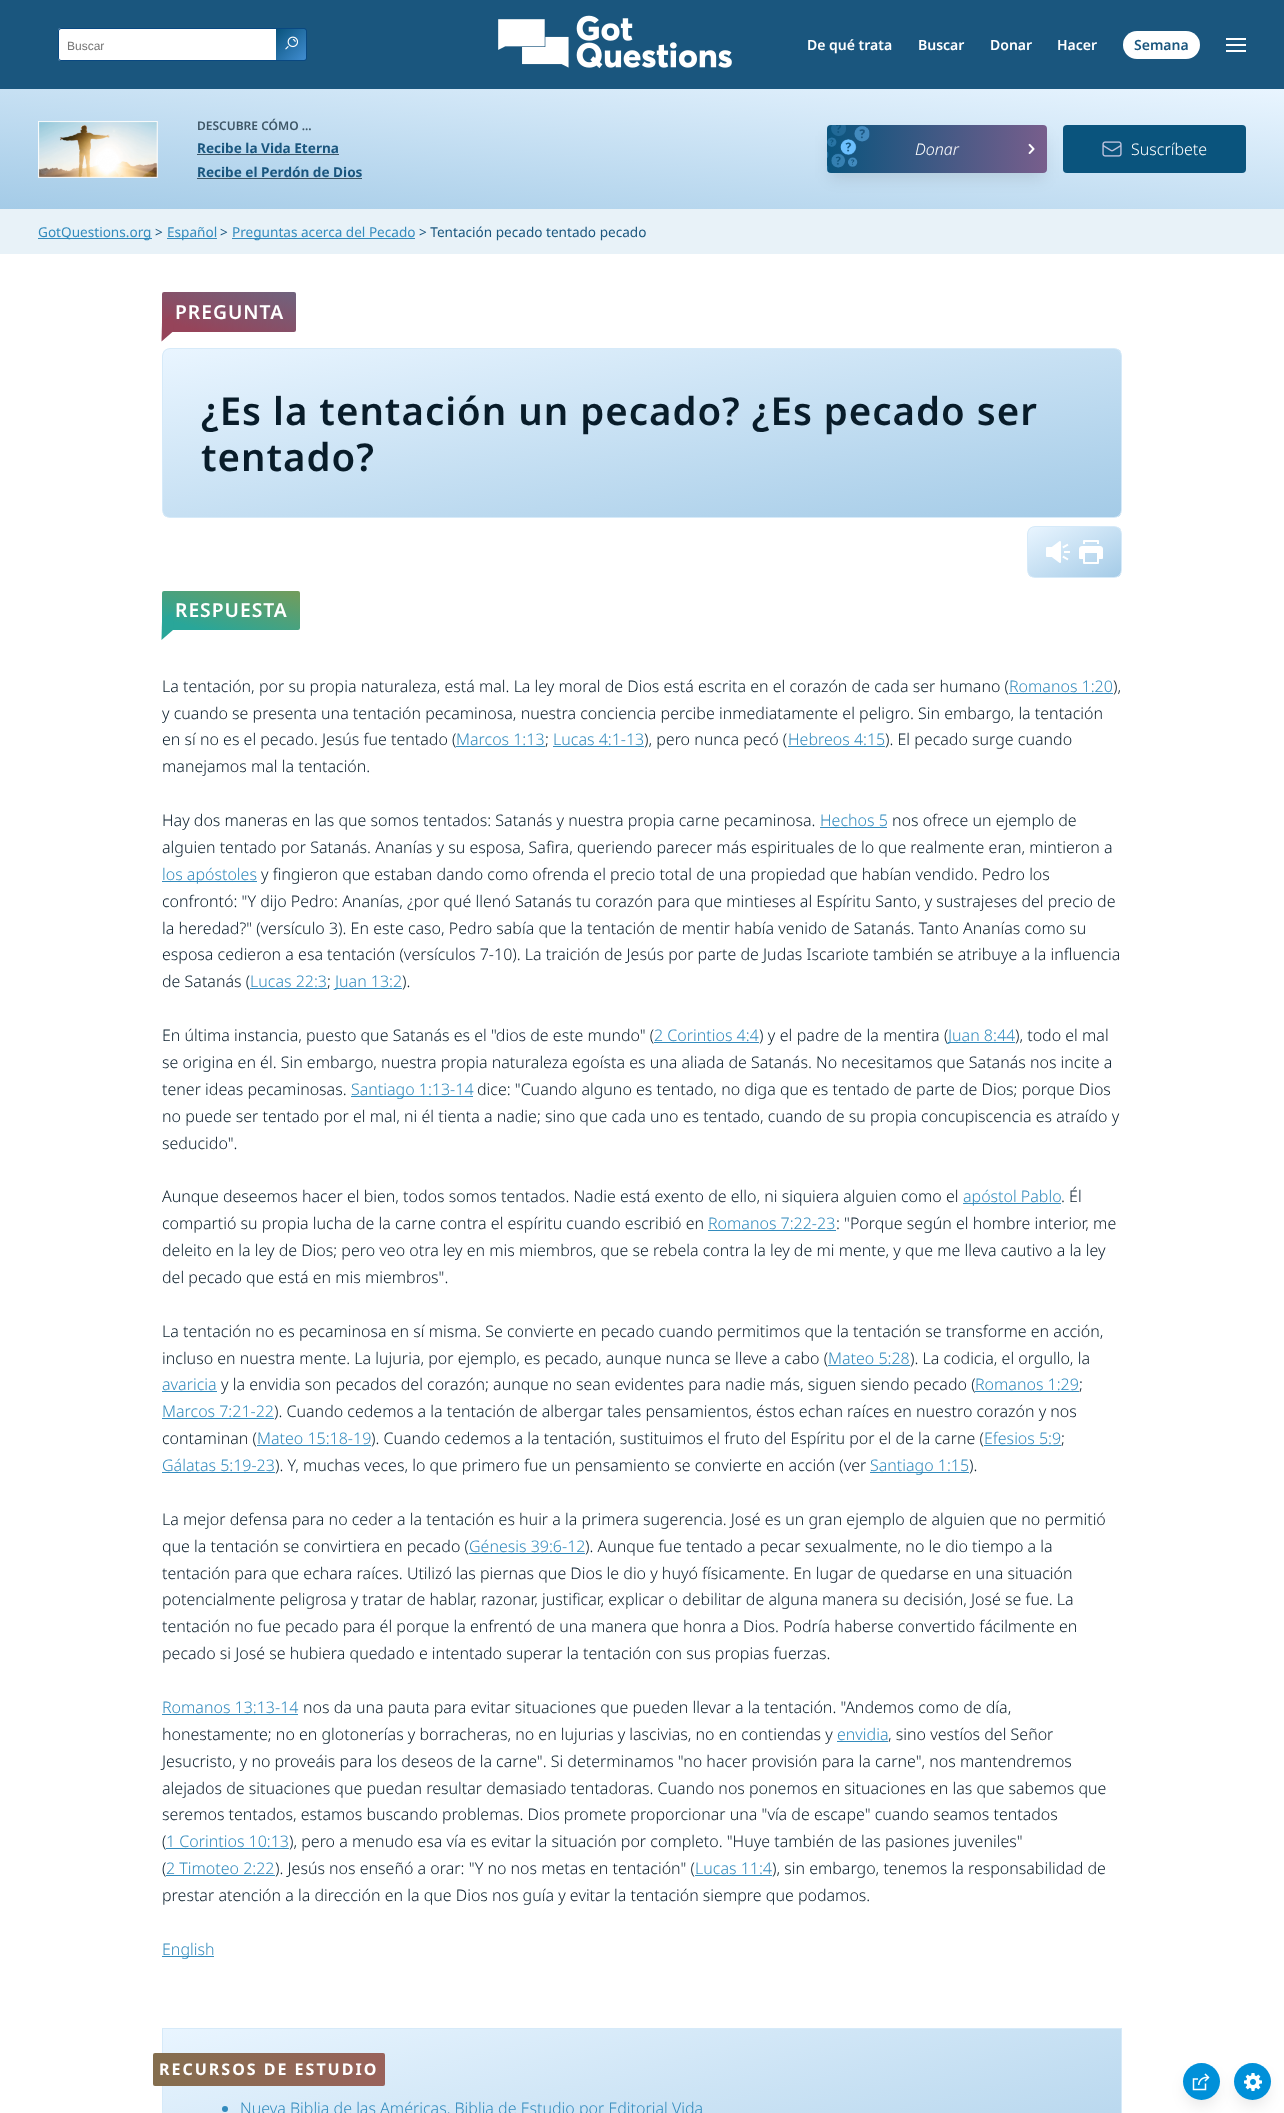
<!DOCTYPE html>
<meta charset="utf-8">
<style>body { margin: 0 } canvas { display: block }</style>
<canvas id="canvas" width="1284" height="2113"></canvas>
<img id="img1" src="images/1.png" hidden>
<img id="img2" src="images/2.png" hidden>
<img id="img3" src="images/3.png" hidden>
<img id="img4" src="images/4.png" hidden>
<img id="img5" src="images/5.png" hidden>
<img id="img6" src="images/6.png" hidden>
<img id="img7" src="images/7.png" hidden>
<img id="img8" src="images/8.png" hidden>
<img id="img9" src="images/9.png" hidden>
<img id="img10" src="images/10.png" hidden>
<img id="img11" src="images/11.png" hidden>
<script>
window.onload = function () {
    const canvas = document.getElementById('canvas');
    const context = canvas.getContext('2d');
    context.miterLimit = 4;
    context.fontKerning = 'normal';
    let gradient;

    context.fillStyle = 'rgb(255, 255, 255)';
    context.fillRect(0, 0, 1284, 2113);
    context.fillStyle = 'rgb(26, 86, 126)';
    context.fillRect(0, 0, 1284, 89);
    context.fillStyle = 'rgb(255, 255, 255)';
    context.beginPath();
    context.roundRect(58, 28, 218, 33, [3, 0, 0, 3]);
    context.fill();
    context.fillStyle = 'rgb(9, 72, 129)';
    context.beginPath();
    context.moveTo(61, 28);
    context.lineTo(276, 28);
    context.lineTo(276, 61);
    context.lineTo(61, 61);
    context.bezierCurveTo(59, 61, 58, 60, 58, 58);
    context.lineTo(58, 31);
    context.bezierCurveTo(58, 29, 59, 28, 61, 28);
    context.closePath();
    context.moveTo(61, 29);
    context.lineTo(276, 29);
    context.lineTo(276, 60);
    context.lineTo(61, 60);
    context.bezierCurveTo(60, 60, 59, 59, 59, 58);
    context.lineTo(59, 31);
    context.bezierCurveTo(59, 30, 60, 29, 61, 29);
    context.closePath();
    context.fill('evenodd');
    gradient = context.createLinearGradient(276, 30, 306, 59);
    gradient.addColorStop(0, 'rgb(10, 84, 125)');
    gradient.addColorStop(1, 'rgb(64, 140, 208)');
    context.fillStyle = gradient;
    context.fillRect(276, 29, 30, 31);
    context.fillStyle = 'rgb(9, 72, 129)';
    context.beginPath();
    context.moveTo(276, 28);
    context.lineTo(304, 28);
    context.bezierCurveTo(305.5, 28, 307, 29.5, 307, 31);
    context.lineTo(307, 58);
    context.bezierCurveTo(307, 59.5, 305.5, 61, 304, 61);
    context.lineTo(276, 61);
    context.closePath();
    context.moveTo(276, 29);
    context.lineTo(304, 29);
    context.bezierCurveTo(305, 29, 306, 30, 306, 31);
    context.lineTo(306, 58);
    context.bezierCurveTo(306, 59, 305, 60, 304, 60);
    context.lineTo(276, 60);
    context.closePath();
    context.fill('evenodd');
    context.drawImage(document.getElementById('img1'), 285, 36, 13, 14);
    context.drawImage(document.getElementById('img2'), 498, 15, 234, 53);
    context.fillStyle = 'rgb(255, 255, 255)';
    context.beginPath();
    context.roundRect(1123, 31, 77, 28, 14);
    context.fill();
    context.drawImage(document.getElementById('img3'), 1226, 38, 20, 14);
    gradient = context.createLinearGradient(631, 268, 653, 30);
    gradient.addColorStop(0, 'rgb(164, 203, 231)');
    gradient.addColorStop(1, 'rgb(233, 245, 255)');
    context.fillStyle = gradient;
    context.fillRect(0, 89, 1284, 120);
    context.drawImage(document.getElementById('img4'), 38, 121, 120, 57);
    context.fillStyle = 'rgb(61, 85, 101)';
    context.fillRect(197, 154, 142, 1);
    context.fillRect(197, 178, 165, 1);
    gradient = context.createLinearGradient(827, 149, 1047, 149);
    gradient.addColorStop(0, 'rgb(10, 84, 125)');
    gradient.addColorStop(1, 'rgb(120, 94, 140)');
    context.fillStyle = gradient;
    context.beginPath();
    context.roundRect(827, 125, 220, 48, 4);
    context.fill();
    context.fillStyle = 'rgb(10, 84, 125)';
    context.beginPath();
    context.roundRect(1063, 125, 183, 48, 4);
    context.fill();
    context.save();
    context.beginPath();
    context.moveTo(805, 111);
    context.lineTo(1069, 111);
    context.lineTo(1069, 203);
    context.lineTo(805, 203);
    context.closePath();
    context.moveTo(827, 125);
    context.lineTo(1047, 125);
    context.lineTo(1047, 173);
    context.lineTo(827, 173);
    context.closePath();
    context.clip('evenodd');
    context.fillStyle = 'rgba(0, 0, 0, 0.1)';
    context.filter = 'blur(8px)';
    context.beginPath();
    context.rect(830, 136, 214, 42);
    context.fill();
    context.filter = 'none';
    context.restore();
    context.drawImage(document.getElementById('img5'), 827, 125, 43, 46);
    context.drawImage(document.getElementById('img6'), 1028, 143, 7, 11);
    context.drawImage(document.getElementById('img7'), 1102, 141, 20, 16);
    context.fillStyle = 'rgb(232, 242, 248)';
    context.fillRect(0, 209, 1284, 45);
    context.fillStyle = 'rgb(51, 139, 189)';
    context.fillRect(38, 238, 114, 1);
    context.fillRect(167, 238, 50, 1);
    context.fillRect(232, 238, 183, 1);
    gradient = context.createLinearGradient(218, 349, 240, 275);
    gradient.addColorStop(0.15, 'rgb(150, 68, 90)');
    gradient.addColorStop(1, 'rgb(111, 99, 126)');
    context.fillStyle = gradient;
    context.beginPath();
    context.roundRect(162, 292, 134, 40, 2);
    context.fill();
    context.fillStyle = 'rgb(150, 68, 90)';
    context.beginPath();
    context.moveTo(162, 322.5);
    context.lineTo(173.5, 313);
    context.lineTo(173, 331.5);
    context.lineTo(161.5, 341.5);
    context.closePath();
    context.fill();
    context.save();
    context.beginPath();
    context.roundRect(162, 348, 960, 170, 8);
    context.clip();
    gradient = context.createLinearGradient(613, 270, 671, 596);
    gradient.addColorStop(0, 'rgb(233, 245, 255)');
    gradient.addColorStop(1, 'rgb(164, 203, 231)');
    context.fillStyle = gradient;
    context.fillRect(163, 349, 958, 168);
    context.restore();
    context.beginPath();
    context.roundRect(162.5, 348.5, 959, 169, 7.5);
    context.strokeStyle = 'rgb(214, 234, 249)';
    context.stroke();
    context.save();
    context.beginPath();
    context.roundRect(1027, 526, 95, 52, 8);
    context.clip();
    gradient = context.createLinearGradient(1054, 513, 1095, 591);
    gradient.addColorStop(0, 'rgb(233, 245, 255)');
    gradient.addColorStop(1, 'rgb(164, 203, 231)');
    context.fillStyle = gradient;
    context.fillRect(1028, 527, 93, 50);
    context.restore();
    context.beginPath();
    context.roundRect(1027.5, 526.5, 94, 51, 7.5);
    context.stroke();
    context.drawImage(document.getElementById('img8'), 1046, 541, 24, 22);
    context.drawImage(document.getElementById('img9'), 1079, 540, 24, 24);
    gradient = context.createLinearGradient(221, 647, 241, 574);
    gradient.addColorStop(0.15, 'rgb(41, 166, 153)');
    gradient.addColorStop(1, 'rgb(116, 156, 90)');
    context.fillStyle = gradient;
    context.beginPath();
    context.roundRect(162, 591, 138, 39, 2);
    context.fill();
    context.fillStyle = 'rgb(41, 166, 153)';
    context.beginPath();
    context.moveTo(162, 621);
    context.lineTo(173.5, 611);
    context.lineTo(173, 630);
    context.lineTo(161.5, 640);
    context.closePath();
    context.fill();
    context.fillStyle = 'rgb(51, 139, 189)';
    context.fillRect(1009, 693, 104, 1);
    context.fillRect(456, 746, 89, 1);
    context.fillRect(553, 746, 91, 1);
    context.fillRect(788, 746, 97, 1);
    context.fillRect(820, 827, 67, 1);
    context.fillRect(162, 881, 95, 1);
    context.fillRect(250, 988, 77, 1);
    context.fillRect(335, 988, 67, 1);
    context.fillRect(654, 1042, 105, 1);
    context.fillRect(948, 1042, 67, 1);
    context.fillRect(351, 1096, 122, 1);
    context.fillRect(963, 1203, 98, 1);
    context.fillRect(708, 1230, 128, 1);
    context.fillRect(828, 1365, 82, 1);
    context.fillRect(162, 1391, 55, 1);
    context.fillRect(975, 1391, 104, 1);
    context.fillRect(162, 1418, 112, 1);
    context.fillRect(257, 1445, 114, 1);
    context.fillRect(984, 1445, 77, 1);
    context.fillRect(162, 1472, 113, 1);
    context.fillRect(870, 1472, 99, 1);
    context.fillRect(469, 1553, 116, 1);
    context.fillRect(162, 1714, 136, 1);
    context.fillRect(837, 1741, 51, 1);
    context.fillRect(166, 1848, 123, 1);
    context.fillRect(166, 1875, 109, 1);
    context.fillRect(695, 1875, 77, 1);
    context.fillRect(162, 1956, 52, 1);
    gradient = context.createLinearGradient(588, 1925, 696, 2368);
    gradient.addColorStop(0, 'rgb(233, 245, 255)');
    gradient.addColorStop(1, 'rgb(164, 203, 231)');
    context.fillStyle = gradient;
    context.fillRect(163, 2029, 958, 84);
    context.strokeRect(162.5, 2028.5, 959, 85);
    gradient = context.createLinearGradient(153, 2070, 385, 2070);
    gradient.addColorStop(0, 'rgb(132, 110, 78)');
    gradient.addColorStop(1, 'rgb(153, 98, 91)');
    context.fillStyle = gradient;
    context.beginPath();
    context.roundRect(153, 2053, 232, 33, 2);
    context.fill();
    context.fillStyle = 'rgb(51, 139, 189)';
    context.beginPath();
    context.arc(225, 2109, 3, 0, 2 * Math.PI);
    context.fill();
    context.fillStyle = 'rgba(0, 0, 0, 0.1)';
    context.filter = 'blur(8px)';
    context.beginPath();
    context.roundRect(1237, 2074, 31, 31, 15.5);
    context.fill();
    context.filter = 'none';
    context.fillStyle = 'rgb(0, 144, 217)';
    context.beginPath();
    context.arc(1252.5, 2081.5, 18.5, 0, 2 * Math.PI);
    context.fill();
    context.fillStyle = 'rgba(0, 0, 0, 0.1)';
    context.filter = 'blur(8px)';
    context.beginPath();
    context.roundRect(1186, 2074, 31, 31, 15.5);
    context.fill();
    context.filter = 'none';
    context.fillStyle = 'rgb(0, 144, 217)';
    context.beginPath();
    context.arc(1201.5, 2081.5, 18.5, 0, 2 * Math.PI);
    context.fill();
    context.drawImage(document.getElementById('img10'), 1192, 2073, 18, 18);
    context.drawImage(document.getElementById('img11'), 1244, 2073, 18, 18);
    context.font = '12px Liberation Sans';
    context.fillStyle = 'rgb(117, 117, 117)';
    context.fillText('Buscar', 67, 50);
    context.font = '600 14px Noto Sans';
    context.fillStyle = 'rgb(255, 255, 255)';
    context.fillText('De qué trata', 807, 50);
    context.fillText('Buscar', 918, 50);
    context.fillText('Donar', 990, 50);
    context.fillText('Hacer', 1057, 50);
    context.fillStyle = 'rgb(26, 86, 126)';
    context.fillText('Semana', 1134, 50);
    context.font = '600 12px Noto Sans';
    context.fillStyle = 'rgb(61, 85, 101)';
    context.fillText('DESCUBRE CÓMO ...', 197, 130);
    context.font = 'bold 13.6px Noto Sans';
    context.fillStyle = 'rgb(26, 86, 126)';
    context.fillText('Recibe la Vida Eterna', 197, 153);
    context.fillText('Recibe el Perdón de Dios', 197, 177);
    context.font = 'italic 300 16px Noto Sans';
    context.fillStyle = 'rgb(255, 255, 255)';
    context.fillText('Donar', 915, 155);
    context.font = '300 16px Noto Sans';
    context.fillText('Suscríbete', 1131, 155);
    context.font = '13.6px Noto Sans';
    context.fillStyle = 'rgb(51, 139, 189)';
    context.fillText('GotQuestions.org', 38, 237);
    context.fillStyle = 'rgb(26, 86, 126)';
    context.fillText('>', 155, 237);
    context.fillStyle = 'rgb(51, 139, 189)';
    context.fillText('Español', 167, 237);
    context.fillStyle = 'rgb(26, 86, 126)';
    context.fillText('>', 220, 237);
    context.fillStyle = 'rgb(51, 139, 189)';
    context.fillText('Preguntas acerca del Pecado', 232, 237);
    context.fillStyle = 'rgb(26, 86, 126)';
    context.fillText('> Tentación pecado tentado pecado', 419, 237);
    context.letterSpacing = '1px';
    context.font = '600 19.25px Noto Sans';
    context.fillStyle = 'rgb(255, 255, 255)';
    context.fillText('PREGUNTA', 175, 319);
    context.font = '600 38.4px Noto Sans';
    context.fillStyle = 'rgb(8, 28, 42)';
    context.fillText('¿Es la tentación un pecado? ¿Es pecado ser', 201, 425);
    context.fillText('tentado?', 201, 471);
    context.font = '600 19.25px Noto Sans';
    context.fillStyle = 'rgb(255, 255, 255)';
    context.fillText('RESPUESTA', 175, 617);
    context.letterSpacing = '0px';
    context.font = '300 16px Noto Sans';
    context.fillStyle = 'rgb(8, 28, 42)';
    context.fillText('La tentación, por su propia naturaleza, está mal. La ley moral de Dios está escrita en el corazón de cada ser humano (', 162, 692);
    context.fillStyle = 'rgb(51, 139, 189)';
    context.fillText('Romanos 1:20', 1009, 692);
    context.fillStyle = 'rgb(8, 28, 42)';
    context.fillText('),', 1113, 692);
    context.fillText('y cuando se presenta una tentación pecaminosa, nuestra conciencia percibe inmediatamente el peligro. Sin embargo, la tentación', 162, 719);
    context.fillText('en sí no es el pecado. Jesús fue tentado (', 162, 745);
    context.fillStyle = 'rgb(51, 139, 189)';
    context.fillText('Marcos 1:13', 456, 745);
    context.fillStyle = 'rgb(8, 28, 42)';
    context.fillText(';', 545, 745);
    context.fillStyle = 'rgb(51, 139, 189)';
    context.fillText('Lucas 4:1-13', 553, 745);
    context.fillStyle = 'rgb(8, 28, 42)';
    context.fillText('), pero nunca pecó (', 644, 745);
    context.fillStyle = 'rgb(51, 139, 189)';
    context.fillText('Hebreos 4:15', 788, 745);
    context.fillStyle = 'rgb(8, 28, 42)';
    context.fillText('). El pecado surge cuando', 885, 745);
    context.fillText('manejamos mal la tentación.', 162, 772);
    context.fillText('Hay dos maneras en las que somos tentados: Satanás y nuestra propia carne pecaminosa.', 162, 826);
    context.fillStyle = 'rgb(51, 139, 189)';
    context.fillText('Hechos 5', 820, 826);
    context.fillStyle = 'rgb(8, 28, 42)';
    context.fillText('nos ofrece un ejemplo de', 892, 826);
    context.fillText('alguien tentado por Satanás. Ananías y su esposa, Safira, queriendo parecer más espirituales de lo que realmente eran, mintieron a', 162, 853);
    context.fillStyle = 'rgb(51, 139, 189)';
    context.fillText('los apóstoles', 162, 880);
    context.fillStyle = 'rgb(8, 28, 42)';
    context.fillText('y fingieron que estaban dando como ofrenda el precio total de una propiedad que habían vendido. Pedro los', 261, 880);
    context.fillText('confrontó: "Y dijo Pedro: Ananías, ¿por qué llenó Satanás tu corazón para que mintieses al Espíritu Santo, y sustrajeses del precio de', 162, 907);
    context.fillText('la heredad?" (versículo 3). En este caso, Pedro sabía que la tentación de mentir había venido de Satanás. Tanto Ananías como su', 162, 934);
    context.fillText('esposa cedieron a esa tentación (versículos 7-10). La traición de Jesús por parte de Judas Iscariote también se atribuye a la influencia', 162, 960);
    context.fillText('de Satanás (', 162, 987);
    context.fillStyle = 'rgb(51, 139, 189)';
    context.fillText('Lucas 22:3', 250, 987);
    context.fillStyle = 'rgb(8, 28, 42)';
    context.fillText(';', 327, 987);
    context.fillStyle = 'rgb(51, 139, 189)';
    context.fillText('Juan 13:2', 335, 987);
    context.fillStyle = 'rgb(8, 28, 42)';
    context.fillText(').', 402, 987);
    context.fillText('En última instancia, puesto que Satanás es el "dios de este mundo" (', 162, 1041);
    context.fillStyle = 'rgb(51, 139, 189)';
    context.fillText('2 Corintios 4:4', 654, 1041);
    context.wordSpacing = '0.25px';
    context.fillStyle = 'rgb(8, 28, 42)';
    context.fillText(') y el padre de la mentira (', 759, 1041);
    context.wordSpacing = '0px';
    context.fillStyle = 'rgb(51, 139, 189)';
    context.fillText('Juan 8:44', 948, 1041);
    context.fillStyle = 'rgb(8, 28, 42)';
    context.fillText('), todo el mal', 1015, 1041);
    context.fillText('se origina en él. Sin embargo, nuestra propia naturaleza egoísta es una aliada de Satanás. No necesitamos que Satanás nos incite a', 162, 1068);
    context.fillText('tener ideas pecaminosas.', 162, 1095);
    context.fillStyle = 'rgb(51, 139, 189)';
    context.fillText('Santiago 1:13-14', 351, 1095);
    context.fillStyle = 'rgb(8, 28, 42)';
    context.fillText('dice: "Cuando alguno es tentado, no diga que es tentado de parte de Dios; porque Dios', 477, 1095);
    context.fillText('no puede ser tentado por el mal, ni él tienta a nadie; sino que cada uno es tentado, cuando de su propia concupiscencia es atraído y', 162, 1122);
    context.fillText('seducido".', 162, 1149);
    context.fillText('Aunque deseemos hacer el bien, todos somos tentados. Nadie está exento de ello, ni siquiera alguien como el', 162, 1202);
    context.fillStyle = 'rgb(51, 139, 189)';
    context.fillText('apóstol Pablo', 963, 1202);
    context.fillStyle = 'rgb(8, 28, 42)';
    context.fillText('. Él', 1061, 1202);
    context.fillText('compartió su propia lucha de la carne contra el espíritu cuando escribió en', 162, 1229);
    context.fillStyle = 'rgb(51, 139, 189)';
    context.fillText('Romanos 7:22-23', 708, 1229);
    context.fillStyle = 'rgb(8, 28, 42)';
    context.fillText(': "Porque según el hombre interior, me', 836, 1229);
    context.fillText('deleito en la ley de Dios; pero veo otra ley en mis miembros, que se rebela contra la ley de mi mente, y que me lleva cautivo a la ley', 162, 1256);
    context.fillText('del pecado que está en mis miembros".', 162, 1283);
    context.fillText('La tentación no es pecaminosa en sí misma. Se convierte en pecado cuando permitimos que la tentación se transforme en acción,', 162, 1337);
    context.fillText('incluso en nuestra mente. La lujuria, por ejemplo, es pecado, aunque nunca se lleve a cabo (', 162, 1364);
    context.fillStyle = 'rgb(51, 139, 189)';
    context.fillText('Mateo 5:28', 828, 1364);
    context.fillStyle = 'rgb(8, 28, 42)';
    context.fillText('). La codicia, el orgullo, la', 910, 1364);
    context.fillStyle = 'rgb(51, 139, 189)';
    context.fillText('avaricia', 162, 1390);
    context.fillStyle = 'rgb(8, 28, 42)';
    context.fillText('y la envidia son pecados del corazón; aunque no sean evidentes para nadie más, siguen siendo pecado (', 221, 1390);
    context.fillStyle = 'rgb(51, 139, 189)';
    context.fillText('Romanos 1:29', 975, 1390);
    context.fillStyle = 'rgb(8, 28, 42)';
    context.fillText(';', 1079, 1390);
    context.fillStyle = 'rgb(51, 139, 189)';
    context.fillText('Marcos 7:21-22', 162, 1417);
    context.fillStyle = 'rgb(8, 28, 42)';
    context.fillText('). Cuando cedemos a la tentación de albergar tales pensamientos, éstos echan raíces en nuestro corazón y nos', 274, 1417);
    context.fillText('contaminan (', 162, 1444);
    context.fillStyle = 'rgb(51, 139, 189)';
    context.fillText('Mateo 15:18-19', 257, 1444);
    context.fillStyle = 'rgb(8, 28, 42)';
    context.fillText('). Cuando cedemos a la tentación, sustituimos el fruto del Espíritu por el de la carne (', 371, 1444);
    context.fillStyle = 'rgb(51, 139, 189)';
    context.fillText('Efesios 5:9', 984, 1444);
    context.fillStyle = 'rgb(8, 28, 42)';
    context.fillText(';', 1061, 1444);
    context.fillStyle = 'rgb(51, 139, 189)';
    context.fillText('Gálatas 5:19-23', 162, 1471);
    context.fillStyle = 'rgb(8, 28, 42)';
    context.fillText('). Y, muchas veces, lo que primero fue un pensamiento se convierte en acción (ver', 275, 1471);
    context.fillStyle = 'rgb(51, 139, 189)';
    context.fillText('Santiago 1:15', 870, 1471);
    context.fillStyle = 'rgb(8, 28, 42)';
    context.fillText(').', 969, 1471);
    context.fillText('La mejor defensa para no ceder a la tentación es huir a la primera sugerencia. José es un gran ejemplo de alguien que no permitió', 162, 1525);
    context.fillText('que la tentación se convirtiera en pecado (', 162, 1552);
    context.fillStyle = 'rgb(51, 139, 189)';
    context.fillText('Génesis 39:6-12', 469, 1552);
    context.fillStyle = 'rgb(8, 28, 42)';
    context.fillText('). Aunque fue tentado a pecar sexualmente, no le dio tiempo a la', 585, 1552);
    context.fillText('tentación para que echara raíces. Utilizó las piernas que Dios le dio y huyó físicamente. En lugar de quedarse en una situación', 162, 1579);
    context.fillText('potencialmente peligrosa y tratar de hablar, razonar, justificar, explicar o debilitar de alguna manera su decisión, José se fue. La', 162, 1605);
    context.fillText('tentación no fue pecado para él porque la enfrentó de una manera que honra a Dios. Podría haberse convertido fácilmente en', 162, 1632);
    context.fillText('pecado si José se hubiera quedado e intentado superar la tentación con sus propias fuerzas.', 162, 1659);
    context.fillStyle = 'rgb(51, 139, 189)';
    context.fillText('Romanos 13:13-14', 162, 1713);
    context.fillStyle = 'rgb(8, 28, 42)';
    context.fillText('nos da una pauta para evitar situaciones que pueden llevar a la tentación. "Andemos como de día,', 303, 1713);
    context.fillText('honestamente; no en glotonerías y borracheras, no en lujurias y lascivias, no en contiendas y', 162, 1740);
    context.fillStyle = 'rgb(51, 139, 189)';
    context.fillText('envidia', 837, 1740);
    context.fillStyle = 'rgb(8, 28, 42)';
    context.fillText(', sino vestíos del Señor', 888, 1740);
    context.fillText('Jesucristo, y no proveáis para los deseos de la carne". Si determinamos "no hacer provisión para la carne", nos mantendremos', 162, 1767);
    context.fillText('alejados de situaciones que puedan resultar demasiado tentadoras. Cuando nos ponemos en situaciones en las que sabemos que', 162, 1794);
    context.fillText('seremos tentados, estamos buscando problemas. Dios promete proporcionar una "vía de escape" cuando seamos tentados', 162, 1820);
    context.fillText('(', 162, 1847);
    context.fillStyle = 'rgb(51, 139, 189)';
    context.fillText('1 Corintios 10:13', 166, 1847);
    context.fillStyle = 'rgb(8, 28, 42)';
    context.fillText('), pero a menudo esa vía es evitar la situación por completo. "Huye también de las pasiones juveniles"', 289, 1847);
    context.fillText('(', 162, 1874);
    context.fillStyle = 'rgb(51, 139, 189)';
    context.fillText('2 Timoteo 2:22', 166, 1874);
    context.fillStyle = 'rgb(8, 28, 42)';
    context.fillText('). Jesús nos enseñó a orar: "Y no nos metas en tentación" (', 275, 1874);
    context.fillStyle = 'rgb(51, 139, 189)';
    context.fillText('Lucas 11:4', 695, 1874);
    context.fillStyle = 'rgb(8, 28, 42)';
    context.fillText('), sin embargo, tenemos la responsabilidad de', 772, 1874);
    context.fillText('prestar atención a la dirección en la que Dios nos guía y evitar la tentación siempre que podamos.', 162, 1901);
    context.fillStyle = 'rgb(51, 139, 189)';
    context.fillText('English', 162, 1955);
    context.letterSpacing = '2px';
    context.font = 'bold 16px Noto Sans';
    context.fillStyle = 'rgb(255, 255, 255)';
    context.fillText('RECURSOS DE ESTUDIO', 159, 2075);
    context.letterSpacing = '0px';
    context.font = '300 16px Noto Sans';
    context.fillStyle = 'rgb(51, 139, 189)';
    context.fillText('Nueva Biblia de las Américas, Biblia de Estudio por Editorial Vida', 240, 2114);
};
</script>
